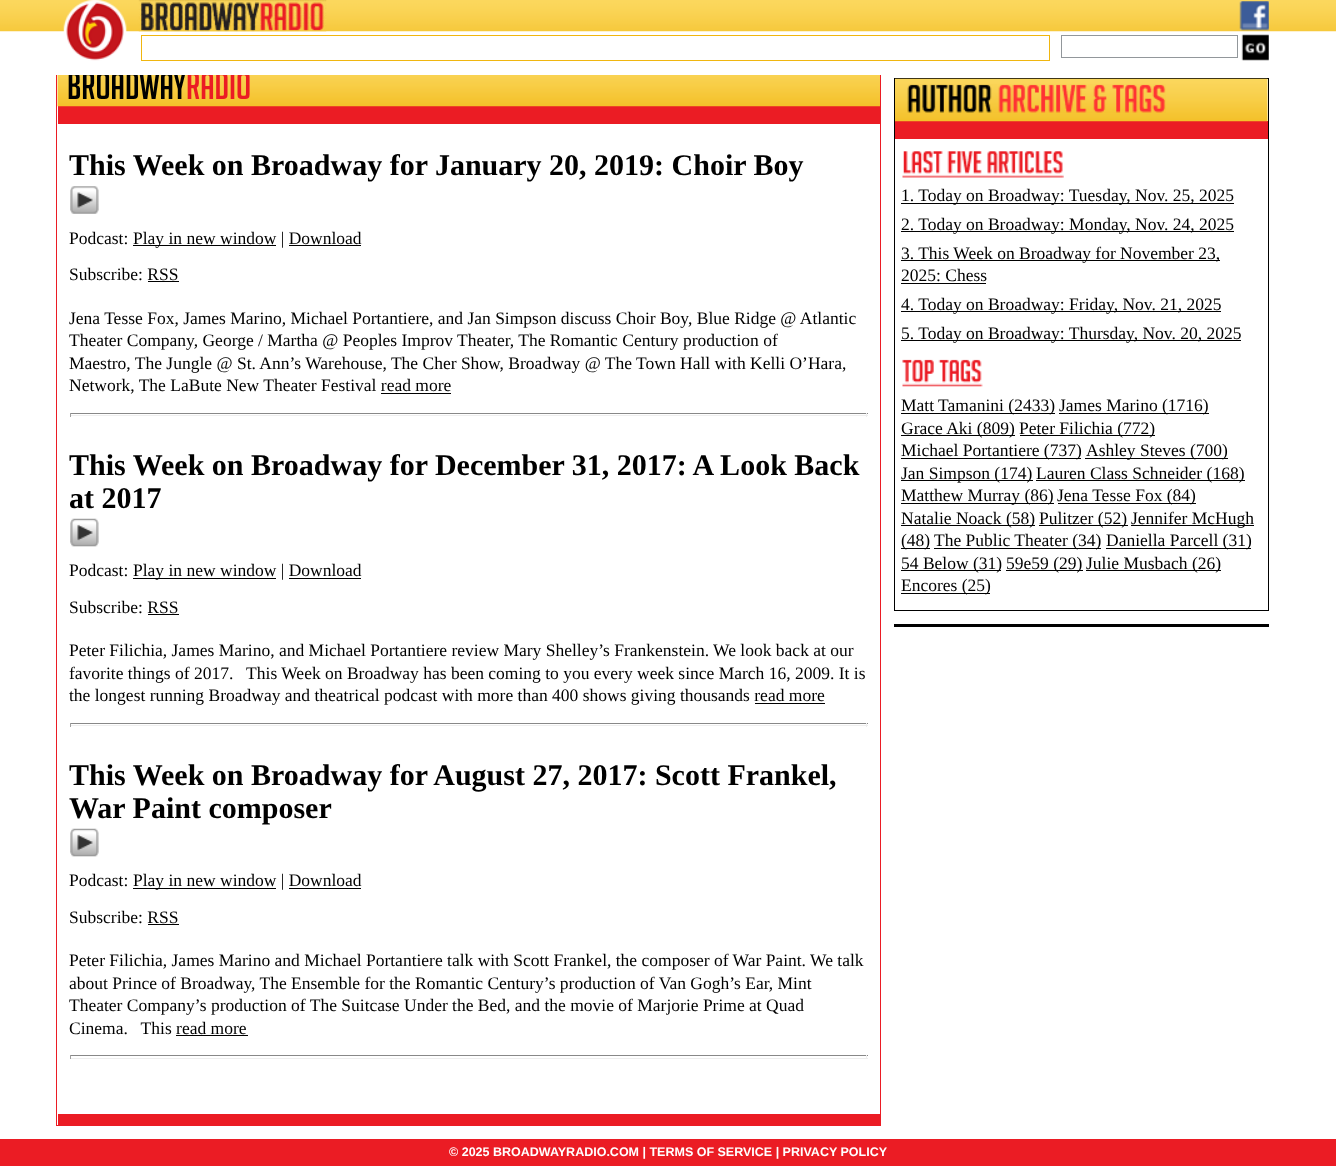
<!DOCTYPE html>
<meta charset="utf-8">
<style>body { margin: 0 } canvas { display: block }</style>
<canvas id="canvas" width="1336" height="1174"></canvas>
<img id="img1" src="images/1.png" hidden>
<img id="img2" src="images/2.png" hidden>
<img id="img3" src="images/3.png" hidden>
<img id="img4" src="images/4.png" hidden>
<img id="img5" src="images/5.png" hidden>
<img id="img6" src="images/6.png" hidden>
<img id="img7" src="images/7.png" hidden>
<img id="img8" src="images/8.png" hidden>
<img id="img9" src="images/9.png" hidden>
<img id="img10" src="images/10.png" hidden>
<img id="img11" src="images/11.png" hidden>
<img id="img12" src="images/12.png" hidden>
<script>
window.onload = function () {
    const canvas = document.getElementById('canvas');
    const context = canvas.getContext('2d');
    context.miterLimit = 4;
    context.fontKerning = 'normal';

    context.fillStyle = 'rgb(255, 255, 255)';
    context.fillRect(0, 0, 1336, 1174);
    context.drawImage(document.getElementById('img1'), 0, 0, 1336, 32);
    context.drawImage(document.getElementById('img2'), 63, 0, 64, 61);
    context.drawImage(document.getElementById('img3'), 138, 0, 189, 32);
    context.drawImage(document.getElementById('img4'), 1239, 1, 30, 30);
    context.strokeStyle = 'rgb(240, 182, 16)';
    context.strokeRect(141.5, 35.5, 908, 25);
    context.strokeStyle = 'rgb(146, 151, 155)';
    context.strokeRect(1061.5, 35.5, 176, 22);
    context.drawImage(document.getElementById('img5'), 1241, 34, 28, 27);
    context.strokeStyle = 'rgb(235, 28, 36)';
    context.strokeRect(56.5, 63.5, 824, 1062);
    context.fillStyle = 'rgb(235, 28, 36)';
    context.fillRect(58, 106, 822, 18);
    context.drawImage(document.getElementById('img6'), 57, 75, 823, 32);
    context.drawImage(document.getElementById('img7'), 70, 186, 29, 28);
    context.fillStyle = 'rgb(0, 0, 0)';
    context.fillRect(133, 245, 143, 1);
    context.fillRect(289, 245, 72, 1);
    context.fillRect(148, 281, 31, 1);
    context.fillRect(381, 393, 70, 1);
    context.fillStyle = 'rgb(136, 136, 136)';
    context.fillRect(70, 413, 798, 1);
    context.fillStyle = 'rgb(238, 238, 238)';
    context.fillRect(866, 413, 1, 4);
    context.fillRect(70, 415, 798, 1);
    context.fillStyle = 'rgb(159, 159, 159)';
    context.fillRect(70, 413, 1, 4);
    context.drawImage(document.getElementById('img8'), 70, 518, 29, 29);
    context.fillStyle = 'rgb(0, 0, 0)';
    context.fillRect(133, 578, 143, 1);
    context.fillRect(289, 578, 72, 1);
    context.fillRect(148, 614, 31, 1);
    context.fillRect(755, 703, 70, 1);
    context.fillStyle = 'rgb(136, 136, 136)';
    context.fillRect(70, 723, 798, 1);
    context.fillStyle = 'rgb(238, 238, 238)';
    context.fillRect(866, 723, 1, 4);
    context.fillRect(70, 725, 798, 1);
    context.fillStyle = 'rgb(159, 159, 159)';
    context.fillRect(70, 723, 1, 4);
    context.drawImage(document.getElementById('img8'), 70, 828, 29, 29);
    context.fillStyle = 'rgb(0, 0, 0)';
    context.fillRect(133, 888, 143, 1);
    context.fillRect(289, 888, 72, 1);
    context.fillRect(148, 924, 31, 1);
    context.fillRect(176, 1035, 72, 1);
    context.fillStyle = 'rgb(136, 136, 136)';
    context.fillRect(70, 1055, 798, 1);
    context.fillStyle = 'rgb(238, 238, 238)';
    context.fillRect(866, 1055, 1, 4);
    context.fillRect(70, 1058, 798, 1);
    context.fillStyle = 'rgb(159, 159, 159)';
    context.fillRect(70, 1055, 1, 4);
    context.fillStyle = 'rgb(235, 28, 36)';
    context.fillRect(58, 1114, 822, 11);
    context.strokeStyle = 'rgb(0, 0, 0)';
    context.strokeRect(894.5, 78.5, 374, 532);
    context.fillRect(895, 121, 373, 18);
    context.drawImage(document.getElementById('img9'), 895, 78, 373, 44);
    context.drawImage(document.getElementById('img10'), 907, 84, 259, 29);
    context.drawImage(document.getElementById('img11'), 902, 151, 162, 27);
    context.fillStyle = 'rgb(0, 0, 0)';
    context.fillRect(901, 203, 333, 1);
    context.fillRect(901, 231, 333, 1);
    context.fillRect(901, 260, 319, 1);
    context.fillRect(901, 283, 85, 1);
    context.fillRect(901, 311, 320, 1);
    context.fillRect(901, 340, 340, 1);
    context.drawImage(document.getElementById('img12'), 902, 359, 81, 28);
    context.fillRect(901, 413, 154, 1);
    context.fillRect(1059, 413, 150, 1);
    context.fillRect(901, 435, 114, 1);
    context.fillRect(1020, 435, 135, 1);
    context.fillRect(901, 458, 180, 1);
    context.fillRect(1085, 458, 143, 1);
    context.fillRect(901, 480, 132, 1);
    context.fillRect(1036, 480, 209, 1);
    context.fillRect(901, 503, 153, 1);
    context.fillRect(1058, 503, 138, 1);
    context.fillRect(901, 525, 134, 1);
    context.fillRect(1039, 525, 89, 1);
    context.fillRect(1131, 525, 123, 1);
    context.fillRect(901, 548, 29, 1);
    context.fillRect(934, 548, 167, 1);
    context.fillRect(1106, 548, 145, 1);
    context.fillRect(901, 570, 100, 1);
    context.fillRect(1006, 570, 77, 1);
    context.fillRect(1086, 570, 135, 1);
    context.fillRect(901, 593, 89, 1);
    context.fillRect(894, 624, 375, 3);
    context.fillStyle = 'rgb(235, 28, 36)';
    context.fillRect(0, 1139, 1336, 27);
    context.font = '37.5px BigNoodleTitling';
    context.fillStyle = 'rgb(0, 0, 0)';
    context.fillText('BROADWAY', 67, 99);
    context.fillStyle = 'rgb(235, 28, 36)';
    context.fillText('RADIO', 186, 99);
    context.fillStyle = 'rgb(255, 255, 255)';
    context.fillRect(56, 63, 825, 12);
    context.font = 'bold 30px Liberation Serif';
    context.fillStyle = 'rgb(0, 0, 0)';
    context.fillText('This Week on Broadway for January 20, 2019: Choir Boy', 69, 175);
    context.font = '17.5px Liberation Serif';
    context.fillText('Podcast:', 69, 244);
    context.fillText('Play in new window | Download', 133, 244);
    context.fillText('Subscribe: RSS', 69, 280);
    context.fillText('Jena Tesse Fox, James Marino, Michael Portantiere, and Jan Simpson discuss Choir Boy, Blue Ridge @ Atlantic', 69, 324);
    context.fillText('Theater Company, George / Martha @ Peoples Improv Theater, The Romantic Century production of', 69, 346);
    context.fillText('Maestro, The Jungle @ St. Ann’s Warehouse, The Cher Show, Broadway @ The Town Hall with Kelli O’Hara,', 69, 369);
    context.fillText('Network, The LaBute New Theater Festival read more', 69, 391);
    context.font = 'bold 30px Liberation Serif';
    context.fillText('This Week on Broadway for December 31, 2017: A Look Back', 69, 475);
    context.fillText('at 2017', 69, 508);
    context.font = '17.5px Liberation Serif';
    context.fillText('Podcast:', 69, 576);
    context.fillText('Play in new window | Download', 133, 576);
    context.fillText('Subscribe: RSS', 69, 613);
    context.fillText('Peter Filichia, James Marino, and Michael Portantiere review Mary Shelley’s Frankenstein. We look back at our', 69, 656);
    context.fillText('favorite things of 2017.   This Week on Broadway has been coming to you every week since March 16, 2009. It is', 69, 679);
    context.fillText('the longest running Broadway and theatrical podcast with more than 400 shows giving thousands read more', 69, 701);
    context.font = 'bold 30px Liberation Serif';
    context.fillText('This Week on Broadway for August 27, 2017: Scott Frankel,', 69, 785);
    context.fillText('War Paint composer', 69, 818);
    context.font = '17.5px Liberation Serif';
    context.fillText('Podcast:', 69, 886);
    context.fillText('Play in new window | Download', 133, 886);
    context.fillText('Subscribe: RSS', 69, 923);
    context.fillText('Peter Filichia, James Marino and Michael Portantiere talk with Scott Frankel, the composer of War Paint. We talk', 69, 966);
    context.fillText('about Prince of Broadway, The Ensemble for the Romantic Century’s production of Van Gogh’s Ear, Mint', 69, 989);
    context.fillText('Theater Company’s production of The Suitcase Under the Bed, and the movie of Marjorie Prime at Quad', 69, 1011);
    context.fillText('Cinema.   This read more', 69, 1034);
    context.fillText('1. Today on Broadway: Tuesday, Nov. 25, 2025', 901, 201);
    context.fillText('2. Today on Broadway: Monday, Nov. 24, 2025', 901, 230);
    context.fillText('3. This Week on Broadway for November 23,', 901, 259);
    context.fillText('2025: Chess', 901, 281);
    context.fillText('4. Today on Broadway: Friday, Nov. 21, 2025', 901, 310);
    context.fillText('5. Today on Broadway: Thursday, Nov. 20, 2025', 901, 339);
    context.fillText('Matt Tamanini (2433)', 901, 411);
    context.fillText('James Marino (1716)', 1059, 411);
    context.fillText('Grace Aki (809)', 901, 434);
    context.fillText('Peter Filichia (772)', 1019, 434);
    context.fillText('Michael Portantiere (737)', 901, 456);
    context.fillText('Ashley Steves (700)', 1086, 456);
    context.fillText('Jan Simpson (174)', 901, 479);
    context.fillText('Lauren Class Schneider (168)', 1036, 479);
    context.fillText('Matthew Murray (86)', 901, 501);
    context.fillText('Jena Tesse Fox (84)', 1057, 501);
    context.fillText('Natalie Noack (58)', 901, 524);
    context.fillText('Pulitzer (52)', 1039, 524);
    context.fillText('Jennifer McHugh', 1131, 524);
    context.fillText('(48)', 901, 546);
    context.fillText('The Public Theater (34)', 934, 546);
    context.fillText('Daniella Parcell (31)', 1106, 546);
    context.fillText('54 Below (31)', 901, 569);
    context.fillText('59e59 (29)', 1006, 569);
    context.fillText('Julie Musbach (26)', 1086, 569);
    context.fillText('Encores (25)', 901, 591);
    context.font = 'bold 12.5px Liberation Sans';
    context.fillStyle = 'rgb(255, 255, 255)';
    context.fillText('© 2025 BROADWAYRADIO.COM | TERMS OF SERVICE | PRIVACY POLICY', 449, 1156);
};
</script>
